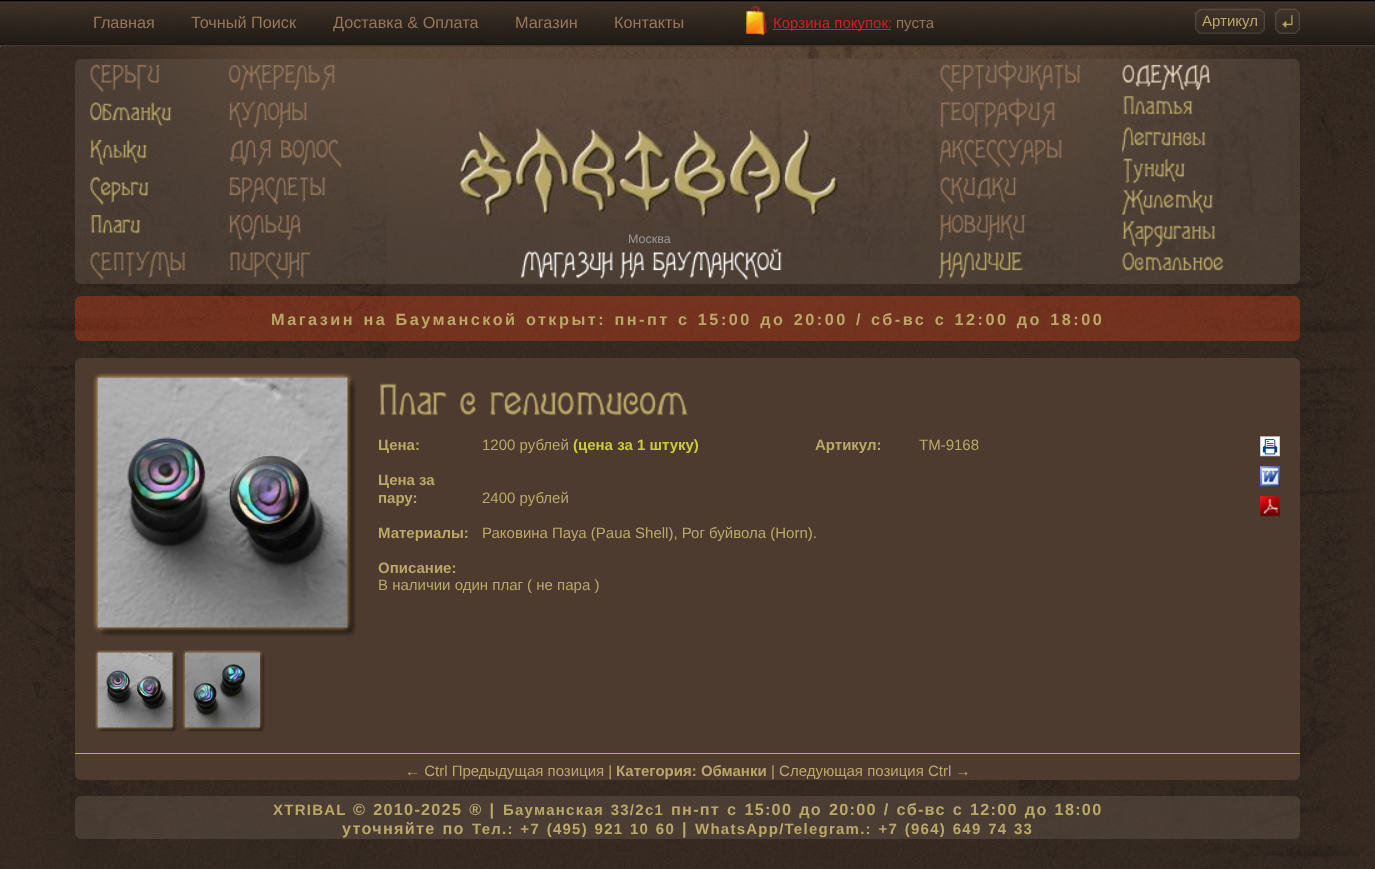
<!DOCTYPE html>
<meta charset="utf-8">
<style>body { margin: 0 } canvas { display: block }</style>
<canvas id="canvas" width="1375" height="869"></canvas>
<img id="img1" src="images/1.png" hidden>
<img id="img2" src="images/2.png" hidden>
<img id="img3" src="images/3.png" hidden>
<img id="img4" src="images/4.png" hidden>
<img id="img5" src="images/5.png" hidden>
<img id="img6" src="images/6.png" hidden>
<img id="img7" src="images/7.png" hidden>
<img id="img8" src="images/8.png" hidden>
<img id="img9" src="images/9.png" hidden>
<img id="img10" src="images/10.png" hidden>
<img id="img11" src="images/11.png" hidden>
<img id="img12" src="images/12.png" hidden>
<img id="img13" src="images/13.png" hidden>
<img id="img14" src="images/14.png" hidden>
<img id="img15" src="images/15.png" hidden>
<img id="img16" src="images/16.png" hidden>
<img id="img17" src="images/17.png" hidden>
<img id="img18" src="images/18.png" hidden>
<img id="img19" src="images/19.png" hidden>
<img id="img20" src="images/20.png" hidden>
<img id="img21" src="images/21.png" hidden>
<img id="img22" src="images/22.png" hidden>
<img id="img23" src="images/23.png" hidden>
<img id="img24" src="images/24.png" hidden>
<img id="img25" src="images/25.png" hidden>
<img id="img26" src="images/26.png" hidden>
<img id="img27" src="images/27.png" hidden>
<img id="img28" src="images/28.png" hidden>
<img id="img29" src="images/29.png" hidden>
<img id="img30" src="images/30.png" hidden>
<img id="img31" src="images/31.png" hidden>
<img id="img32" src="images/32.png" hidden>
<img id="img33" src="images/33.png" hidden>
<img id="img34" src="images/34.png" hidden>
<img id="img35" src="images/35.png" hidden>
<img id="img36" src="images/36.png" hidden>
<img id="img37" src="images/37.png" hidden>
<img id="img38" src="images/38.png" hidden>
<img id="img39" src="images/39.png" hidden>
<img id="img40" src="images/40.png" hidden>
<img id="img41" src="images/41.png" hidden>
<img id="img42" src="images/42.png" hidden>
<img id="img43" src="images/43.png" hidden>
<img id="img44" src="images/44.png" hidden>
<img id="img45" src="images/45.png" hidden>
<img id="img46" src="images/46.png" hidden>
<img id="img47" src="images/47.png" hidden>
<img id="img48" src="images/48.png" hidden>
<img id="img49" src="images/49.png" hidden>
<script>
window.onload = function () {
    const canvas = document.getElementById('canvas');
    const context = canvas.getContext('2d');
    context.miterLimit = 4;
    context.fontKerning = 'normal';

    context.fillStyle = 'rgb(255, 255, 255)';
    context.fillRect(0, 0, 1375, 869);
    context.drawImage(document.getElementById('img1'), 1, 46, 1374, 1);
    context.drawImage(document.getElementById('img2'), 0, 46, 1375, 823);
    context.drawImage(document.getElementById('img3'), 0, 0, 1375, 47);
    context.drawImage(document.getElementById('img4'), 745, 6, 23, 29);
    context.fillStyle = 'rgb(204, 34, 39)';
    context.fillRect(773, 29, 118, 1);
    context.drawImage(document.getElementById('img5'), 1195, 8, 70, 26);
    context.drawImage(document.getElementById('img6'), 1275, 8, 25, 26);
    context.drawImage(document.getElementById('img7'), 1279, 8, 17, 26);
    context.fillStyle = 'rgba(96, 81, 70, 0.5)';
    context.beginPath();
    context.roundRect(75, 59, 1225, 225, 6);
    context.fill();
    context.drawImage(document.getElementById('img8'), 90, 64, 70, 29);
    context.drawImage(document.getElementById('img9'), 90, 102, 82, 25);
    context.drawImage(document.getElementById('img10'), 90, 139, 57, 27);
    context.drawImage(document.getElementById('img11'), 90, 176, 59, 29);
    context.drawImage(document.getElementById('img12'), 91, 214, 50, 20);
    context.drawImage(document.getElementById('img13'), 90, 251, 96, 29);
    context.drawImage(document.getElementById('img14'), 228, 65, 107, 26);
    context.drawImage(document.getElementById('img15'), 228, 101, 80, 28);
    context.drawImage(document.getElementById('img16'), 230, 139, 42, 27);
    context.drawImage(document.getElementById('img17'), 280, 139, 62, 29);
    context.drawImage(document.getElementById('img18'), 228, 176, 98, 29);
    context.drawImage(document.getElementById('img19'), 228, 214, 74, 27);
    context.drawImage(document.getElementById('img20'), 230, 251, 81, 29);
    context.drawImage(document.getElementById('img21'), 443, 59, 457, 203);
    context.drawImage(document.getElementById('img22'), 940, 60, 141, 33);
    context.drawImage(document.getElementById('img23'), 940, 97, 116, 32);
    context.drawImage(document.getElementById('img24'), 940, 138, 122, 30);
    context.drawImage(document.getElementById('img25'), 940, 176, 77, 29);
    context.drawImage(document.getElementById('img26'), 940, 214, 85, 28);
    context.drawImage(document.getElementById('img27'), 938, 251, 85, 28);
    context.drawImage(document.getElementById('img28'), 1122, 64, 89, 26);
    context.drawImage(document.getElementById('img29'), 1123, 96, 70, 19);
    context.drawImage(document.getElementById('img30'), 1122, 127, 84, 26);
    context.drawImage(document.getElementById('img31'), 1122, 158, 63, 26);
    context.drawImage(document.getElementById('img32'), 1122, 189, 91, 26);
    context.drawImage(document.getElementById('img33'), 1122, 221, 94, 26);
    context.drawImage(document.getElementById('img34'), 1122, 252, 102, 20);
    context.drawImage(document.getElementById('img35'), 520, 251, 93, 28);
    context.drawImage(document.getElementById('img36'), 619, 251, 26, 28);
    context.drawImage(document.getElementById('img37'), 652, 248, 130, 32);
    context.fillStyle = 'rgba(255, 73, 28, 0.3)';
    context.beginPath();
    context.roundRect(75, 296, 1225, 45, 6);
    context.fill();
    context.fillStyle = 'rgb(77, 59, 48)';
    context.beginPath();
    context.roundRect(75, 358, 1225, 422, 6);
    context.fill();
    context.drawImage(document.getElementById('img38'), 93, 373, 263, 263);
    context.drawImage(document.getElementById('img39'), 97, 377, 251, 251);
    context.drawImage(document.getElementById('img40'), 95, 650, 82, 82);
    context.drawImage(document.getElementById('img41'), 97, 652, 76, 76);
    context.drawImage(document.getElementById('img42'), 182, 650, 83, 82);
    context.drawImage(document.getElementById('img43'), 185, 652, 75, 76);
    context.drawImage(document.getElementById('img44'), 380, 383, 67, 34);
    context.drawImage(document.getElementById('img45'), 460, 392, 17, 24);
    context.drawImage(document.getElementById('img46'), 490, 392, 198, 25);
    context.drawImage(document.getElementById('img47'), 1260, 436, 20, 21);
    context.drawImage(document.getElementById('img48'), 1260, 466, 20, 21);
    context.drawImage(document.getElementById('img49'), 1260, 496, 20, 21);
    context.fillStyle = 'rgb(186, 168, 105)';
    context.fillRect(75, 753, 1225, 1);
    context.fillStyle = 'rgba(96, 81, 70, 0.5)';
    context.beginPath();
    context.roundRect(75, 796, 1225, 43, 6);
    context.fill();
    context.font = '16.25px Liberation Sans';
    context.fillStyle = 'rgb(150, 119, 92)';
    context.fillText('Главная', 93, 28);
    context.fillText('Точный Поиск', 191, 28);
    context.fillText('Доставка & Оплата', 333, 28);
    context.fillText('Магазин', 515, 28);
    context.fillText('Контакты', 614, 28);
    context.font = '15px Liberation Sans';
    context.fillStyle = 'rgb(204, 34, 39)';
    context.fillText('Корзина покупок:', 773, 28);
    context.fillStyle = 'rgb(150, 119, 92)';
    context.fillText('пуста', 896, 28);
    context.fillStyle = 'rgb(186, 168, 105)';
    context.fillText('Артикул', 1202, 26);
    context.font = '12.5px Liberation Sans';
    context.fillStyle = 'rgb(153, 153, 153)';
    context.fillText('Москва', 628, 243);
    context.letterSpacing = '2.5px';
    context.wordSpacing = '1.25px';
    context.font = 'bold 16.25px Liberation Sans';
    context.fillStyle = 'rgb(186, 168, 105)';
    context.fillText('Магазин на Бауманской открыт: пн-пт с 15:00 до 20:00', 271, 325);
    context.wordSpacing = '0px';
    context.fillText('/', 856, 325);
    context.wordSpacing = '1.25px';
    context.fillText('сб-вс с 12:00 до 18:00', 871, 325);
    context.letterSpacing = '0px';
    context.wordSpacing = '0px';
    context.font = 'bold 15px Liberation Sans';
    context.fillText('Цена:', 378, 450);
    context.font = '15px Liberation Sans';
    context.fillText('1200 рублей', 482, 450);
    context.font = 'bold 15px Liberation Sans';
    context.fillStyle = 'rgb(204, 204, 51)';
    context.fillText('(цена за 1 штуку)', 573, 450);
    context.fillStyle = 'rgb(186, 168, 105)';
    context.fillText('Артикул:', 815, 450);
    context.font = '15px Liberation Sans';
    context.fillText('TM-9168', 919, 450);
    context.font = 'bold 15px Liberation Sans';
    context.fillText('Цена за', 378, 485);
    context.fillText('пару:', 378, 503);
    context.font = '15px Liberation Sans';
    context.fillText('2400 рублей', 482, 503);
    context.font = 'bold 15px Liberation Sans';
    context.fillText('Материалы:', 378, 538);
    context.font = '15px Liberation Sans';
    context.fillText('Раковина Пауа (Paua Shell), Рог буйвола (Horn).', 482, 538);
    context.font = 'bold 15px Liberation Sans';
    context.fillText('Описание:', 378, 573);
    context.font = '15px Liberation Sans';
    context.fillText('В наличии один плаг ( не пара )', 378, 590);
    context.fillText('← Ctrl Предыдущая позиция |', 405, 776);
    context.font = 'bold 15px Liberation Sans';
    context.fillText('Категория: Обманки', 616, 776);
    context.font = '15px Liberation Sans';
    context.fillText('| Следующая позиция Ctrl →', 771, 776);
    context.letterSpacing = '1.25px';
    context.font = 'bold 15px Liberation Sans';
    context.fillText('XTRIBAL', 273, 815);
    context.wordSpacing = '1.25px';
    context.font = 'bold 16.25px Liberation Sans';
    context.fillText('© 2010-2025 ® |', 353, 815);
    context.font = 'bold 15px Liberation Sans';
    context.fillText('Бауманская 33/2c1', 503, 815);
    context.font = 'bold 16.25px Liberation Sans';
    context.fillText('пн-пт с 15:00 до 20:00 / сб-вс с 12:00 до 18:00', 671, 815);
    context.fillText('уточняйте по', 342, 834);
    context.font = 'bold 15px Liberation Sans';
    context.fillText('Тел.: +7 (495) 921 10 60', 472, 834);
    context.wordSpacing = '0px';
    context.font = 'bold 16.25px Liberation Sans';
    context.fillText('|', 682, 834);
    context.wordSpacing = '1.25px';
    context.font = 'bold 15px Liberation Sans';
    context.fillText('WhatsApp/Telegram.: +7 (964) 649 74 33', 695, 834);
};
</script>
